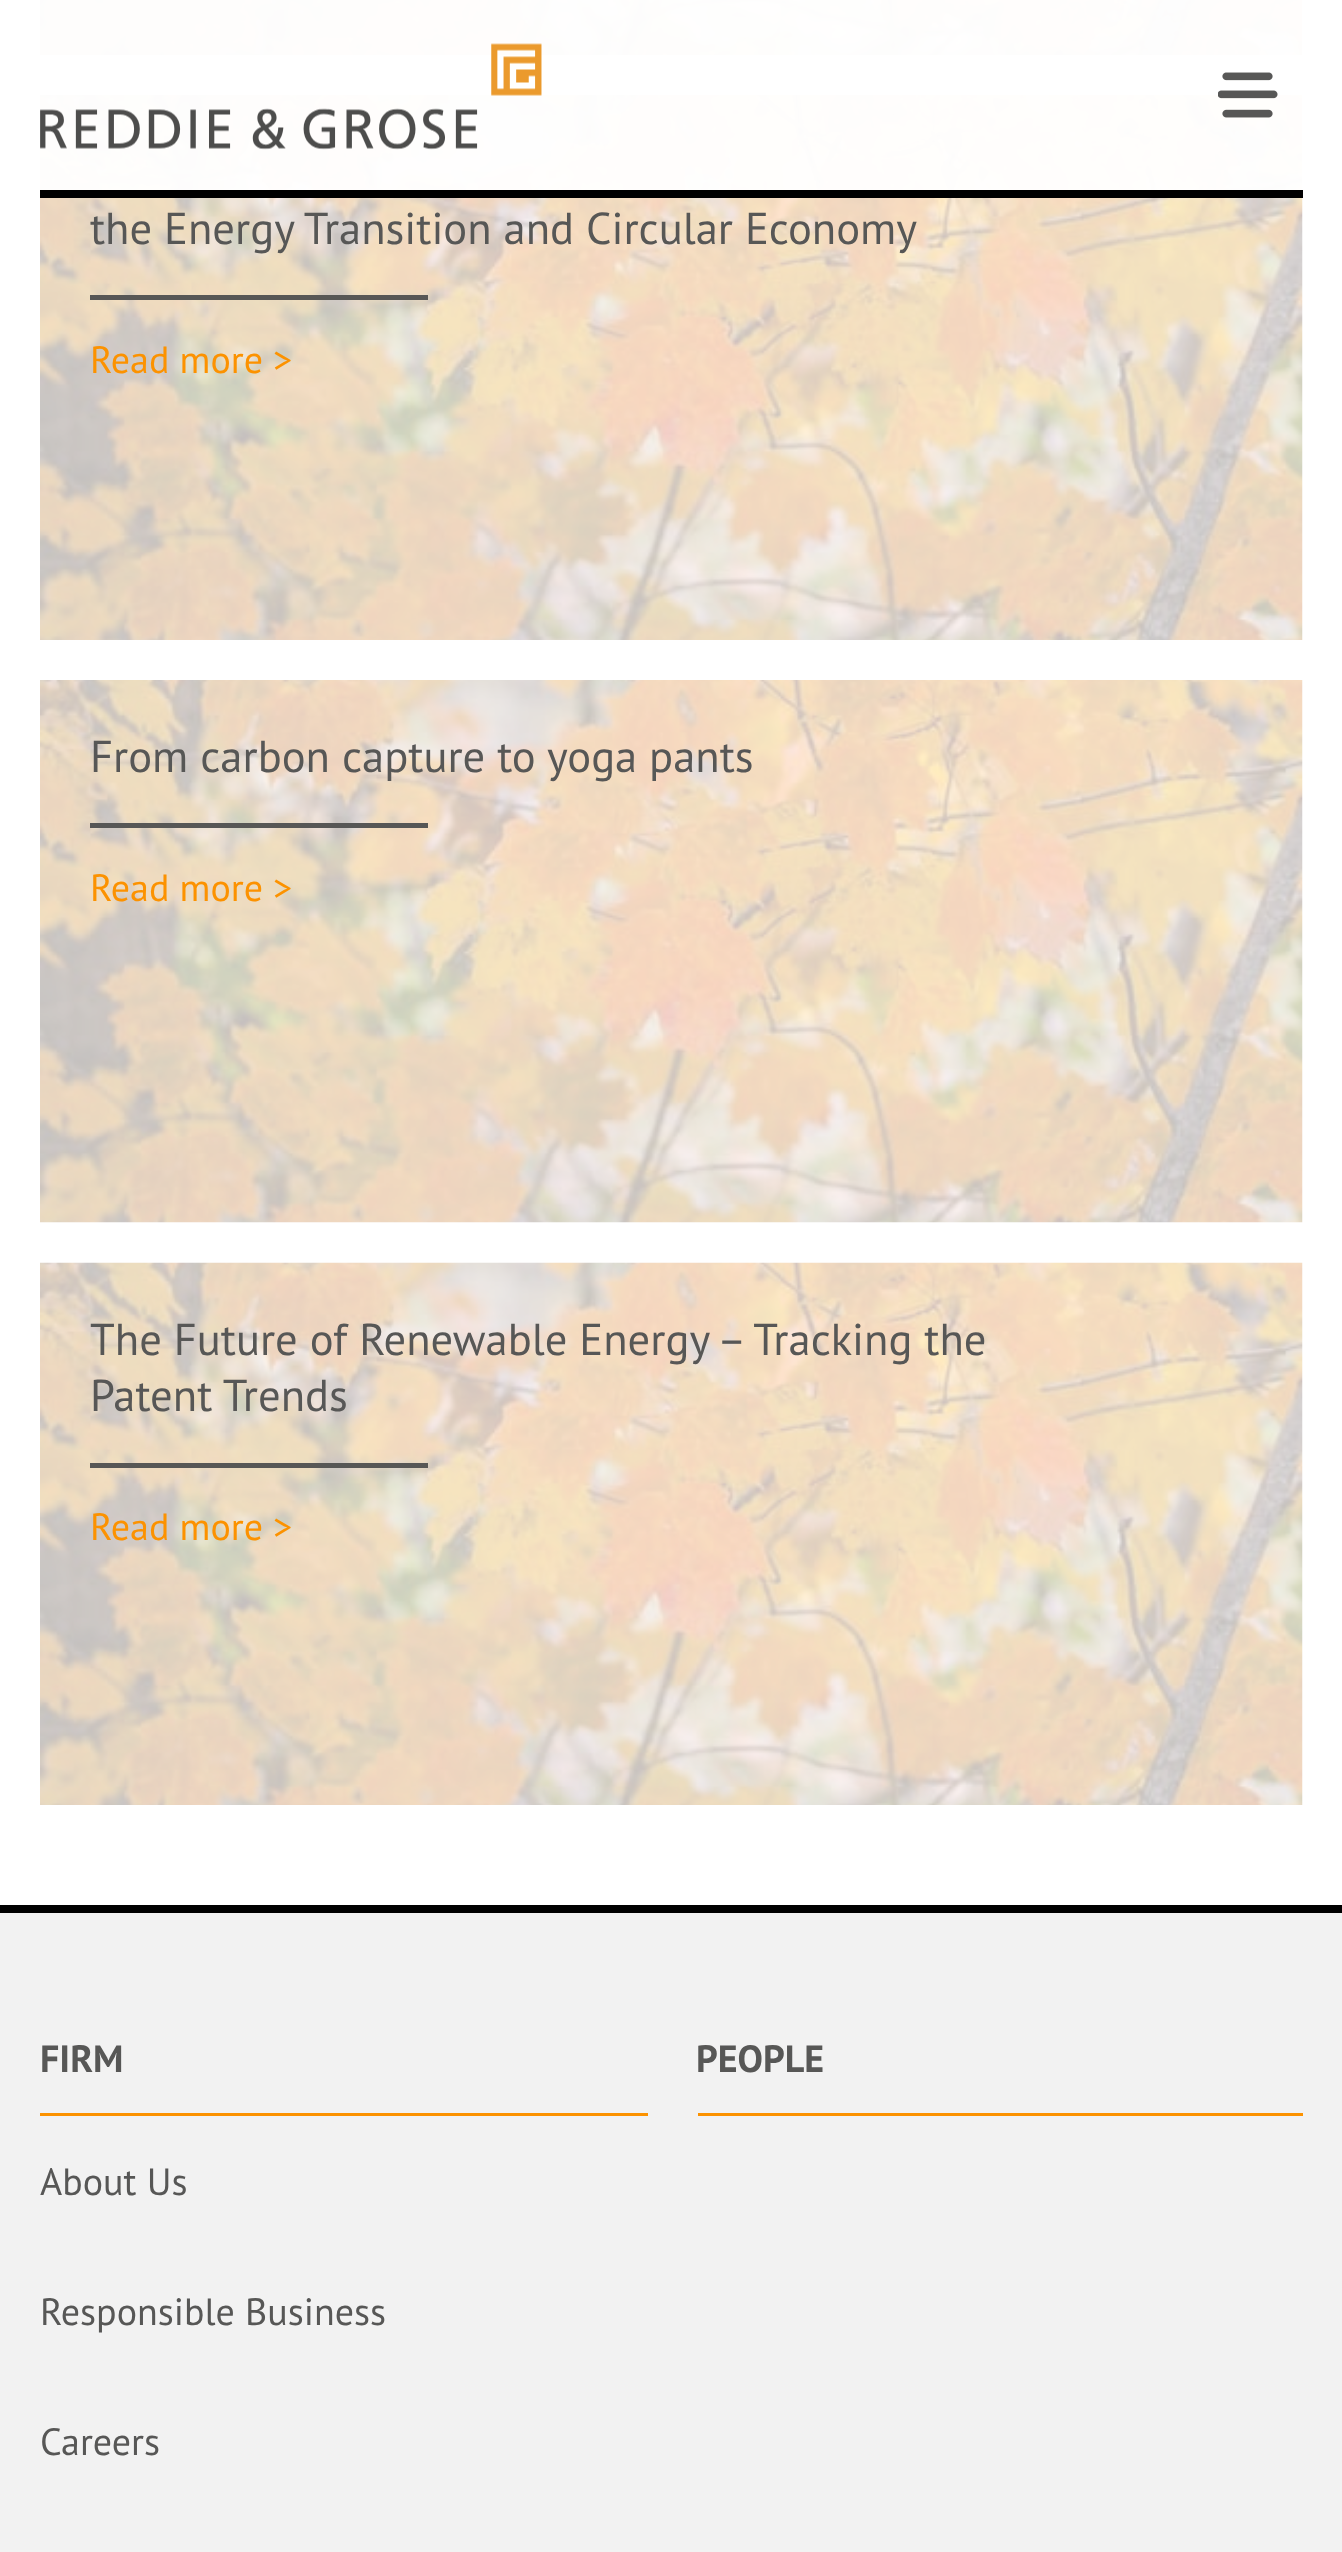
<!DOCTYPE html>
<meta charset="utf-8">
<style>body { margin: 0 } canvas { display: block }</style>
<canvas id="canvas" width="1342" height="2552"></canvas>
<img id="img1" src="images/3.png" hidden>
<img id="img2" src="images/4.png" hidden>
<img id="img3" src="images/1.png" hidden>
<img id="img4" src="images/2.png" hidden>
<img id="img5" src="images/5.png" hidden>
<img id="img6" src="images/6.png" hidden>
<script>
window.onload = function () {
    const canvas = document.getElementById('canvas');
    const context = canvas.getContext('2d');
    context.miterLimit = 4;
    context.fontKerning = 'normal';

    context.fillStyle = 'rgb(255, 255, 255)';
    context.fillRect(0, 0, 1342, 2552);
    context.drawImage(document.getElementById('img1'), 40, 0, 1263, 55);
    context.drawImage(document.getElementById('img2'), 40, 95, 1263, 545);
    context.fillStyle = 'rgba(255, 255, 255, 0.95)';
    context.fillRect(40, 0, 1263, 190);
    context.drawImage(document.getElementById('img3'), 40, 43, 502, 107);
    context.drawImage(document.getElementById('img4'), 1218, 72, 60, 46);
    context.fillStyle = 'rgb(0, 0, 0)';
    context.fillRect(40, 190, 1263, 8);
    context.fillStyle = 'rgb(87, 87, 86)';
    context.fillRect(90, 295, 338, 5);
    context.drawImage(document.getElementById('img5'), 40, 680, 1263, 543);
    context.fillRect(90, 823, 338, 5);
    context.drawImage(document.getElementById('img6'), 40, 1262, 1263, 543);
    context.fillRect(90, 1463, 338, 5);
    context.fillStyle = 'rgb(242, 242, 242)';
    context.fillRect(0, 1913, 1342, 639);
    context.fillStyle = 'rgb(0, 0, 0)';
    context.fillRect(0, 1905, 1342, 8);
    context.fillStyle = 'rgb(252, 146, 0)';
    context.fillRect(40, 2113, 608, 3);
    context.fillRect(698, 2113, 605, 3);
    context.font = '44.6px PT Sans';
    context.fillStyle = 'rgb(87, 87, 86)';
    context.fillText('the Energy Transition and Circular Economy', 90, 244);
    context.font = '38px PT Sans';
    context.fillStyle = 'rgb(252, 146, 0)';
    context.fillText('Read more >', 90, 373);
    context.font = '44.6px PT Sans';
    context.fillStyle = 'rgb(87, 87, 86)';
    context.fillText('From carbon capture to yoga pants', 90, 772);
    context.font = '38px PT Sans';
    context.fillStyle = 'rgb(252, 146, 0)';
    context.fillText('Read more >', 90, 901);
    context.font = '44.6px PT Sans';
    context.fillStyle = 'rgb(87, 87, 86)';
    context.fillText('The Future of Renewable Energy – Tracking the', 90, 1355);
    context.fillText('Patent Trends', 90, 1411);
    context.font = '38px PT Sans';
    context.fillStyle = 'rgb(252, 146, 0)';
    context.fillText('Read more >', 90, 1540);
    context.font = 'bold 38px PT Sans';
    context.fillStyle = 'rgb(87, 87, 86)';
    context.fillText('FIRM', 40, 2072);
    context.font = '38px PT Sans';
    context.fillText('About Us', 40, 2195);
    context.fillText('Responsible Business', 40, 2325);
    context.fillText('Careers', 40, 2455);
    context.font = 'bold 38px PT Sans';
    context.fillText('PEOPLE', 696, 2072);
};
</script>
